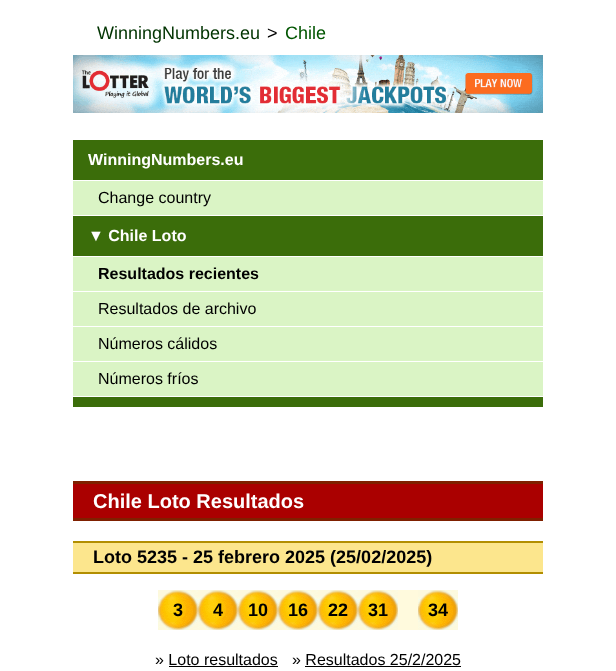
<!DOCTYPE html>
<meta charset="utf-8">
<style>body { margin: 0 } canvas { display: block }</style>
<canvas id="canvas" width="616" height="671"></canvas>
<img id="img1" src="images/1.png" hidden>
<img id="img2" src="images/2.png" hidden>
<script>
window.onload = function () {
    const canvas = document.getElementById('canvas');
    const context = canvas.getContext('2d');
    context.miterLimit = 4;
    context.fontKerning = 'normal';

    context.fillStyle = 'rgb(255, 255, 255)';
    context.fillRect(0, 0, 616, 671);
    context.drawImage(document.getElementById('img1'), 73, 55, 470, 58);
    context.fillStyle = 'rgb(59, 109, 10)';
    context.fillRect(73, 140, 470, 40);
    context.fillStyle = 'rgb(218, 244, 197)';
    context.fillRect(73, 181, 470, 34);
    context.fillStyle = 'rgb(59, 109, 10)';
    context.fillRect(73, 216, 470, 40);
    context.fillStyle = 'rgb(218, 244, 197)';
    context.fillRect(73, 257, 470, 34);
    context.fillRect(73, 292, 470, 34);
    context.fillRect(73, 327, 470, 34);
    context.fillRect(73, 362, 470, 34);
    context.fillStyle = 'rgb(59, 109, 10)';
    context.fillRect(73, 397, 470, 10);
    context.fillStyle = 'rgb(170, 0, 0)';
    context.fillRect(73, 484, 470, 34);
    context.fillStyle = 'rgb(127, 32, 0)';
    context.fillRect(73, 481, 470, 3);
    context.fillRect(73, 518, 470, 3);
    context.fillStyle = 'rgb(252, 230, 141)';
    context.fillRect(73, 543, 470, 29);
    context.fillStyle = 'rgb(178, 142, 1)';
    context.fillRect(73, 541, 470, 2);
    context.fillRect(73, 572, 470, 2);
    context.drawImage(document.getElementById('img2'), 158, 590, 40, 40);
    context.drawImage(document.getElementById('img2'), 198, 590, 40, 40);
    context.drawImage(document.getElementById('img2'), 238, 590, 40, 40);
    context.drawImage(document.getElementById('img2'), 278, 590, 40, 40);
    context.drawImage(document.getElementById('img2'), 318, 590, 40, 40);
    context.drawImage(document.getElementById('img2'), 358, 590, 40, 40);
    context.fillStyle = 'rgb(255, 250, 221)';
    context.fillRect(398, 590, 20, 40);
    context.drawImage(document.getElementById('img2'), 418, 590, 40, 40);
    context.fillStyle = 'rgb(0, 0, 0)';
    context.fillRect(169, 666, 109, 1);
    context.fillRect(305, 666, 156, 1);
    context.font = '18px Liberation Sans';
    context.fillStyle = 'rgb(0, 51, 0)';
    context.fillText('WinningNumbers.eu', 97, 39);
    context.fillStyle = 'rgb(0, 0, 0)';
    context.fillText('>', 267, 39);
    context.fillStyle = 'rgb(0, 85, 0)';
    context.fillText('Chile', 285, 39);
    context.font = 'bold 16px Liberation Sans';
    context.fillStyle = 'rgb(255, 255, 255)';
    context.fillText('WinningNumbers.eu', 88, 165);
    context.font = '16px Liberation Sans';
    context.fillStyle = 'rgb(0, 0, 0)';
    context.fillText('Change country', 98, 203);
    context.font = 'bold 16px Liberation Sans';
    context.fillStyle = 'rgb(255, 255, 255)';
    context.fillText('▼ Chile Loto', 88, 241);
    context.fillStyle = 'rgb(0, 0, 0)';
    context.fillText('Resultados recientes', 98, 279);
    context.font = '16px Liberation Sans';
    context.fillText('Resultados de archivo', 98, 314);
    context.fillText('Números cálidos', 98, 349);
    context.fillText('Números fríos', 98, 384);
    context.font = 'bold 20px Liberation Sans';
    context.fillStyle = 'rgb(255, 255, 255)';
    context.fillText('Chile Loto Resultados', 93, 508);
    context.font = 'bold 18px Liberation Sans';
    context.fillStyle = 'rgb(0, 0, 0)';
    context.fillText('Loto 5235 - 25 febrero 2025 (25/02/2025)', 93, 563);
    context.fillText('3', 173, 616);
    context.fillText('4', 213, 616);
    context.fillText('10', 248, 616);
    context.fillText('16', 288, 616);
    context.fillText('22', 328, 616);
    context.fillText('31', 368, 616);
    context.fillText('34', 428, 616);
    context.font = '16px Liberation Sans';
    context.fillText('» Loto resultados', 155, 665);
    context.fillText('» Resultados 25/2/2025', 292, 665);
};
</script>
